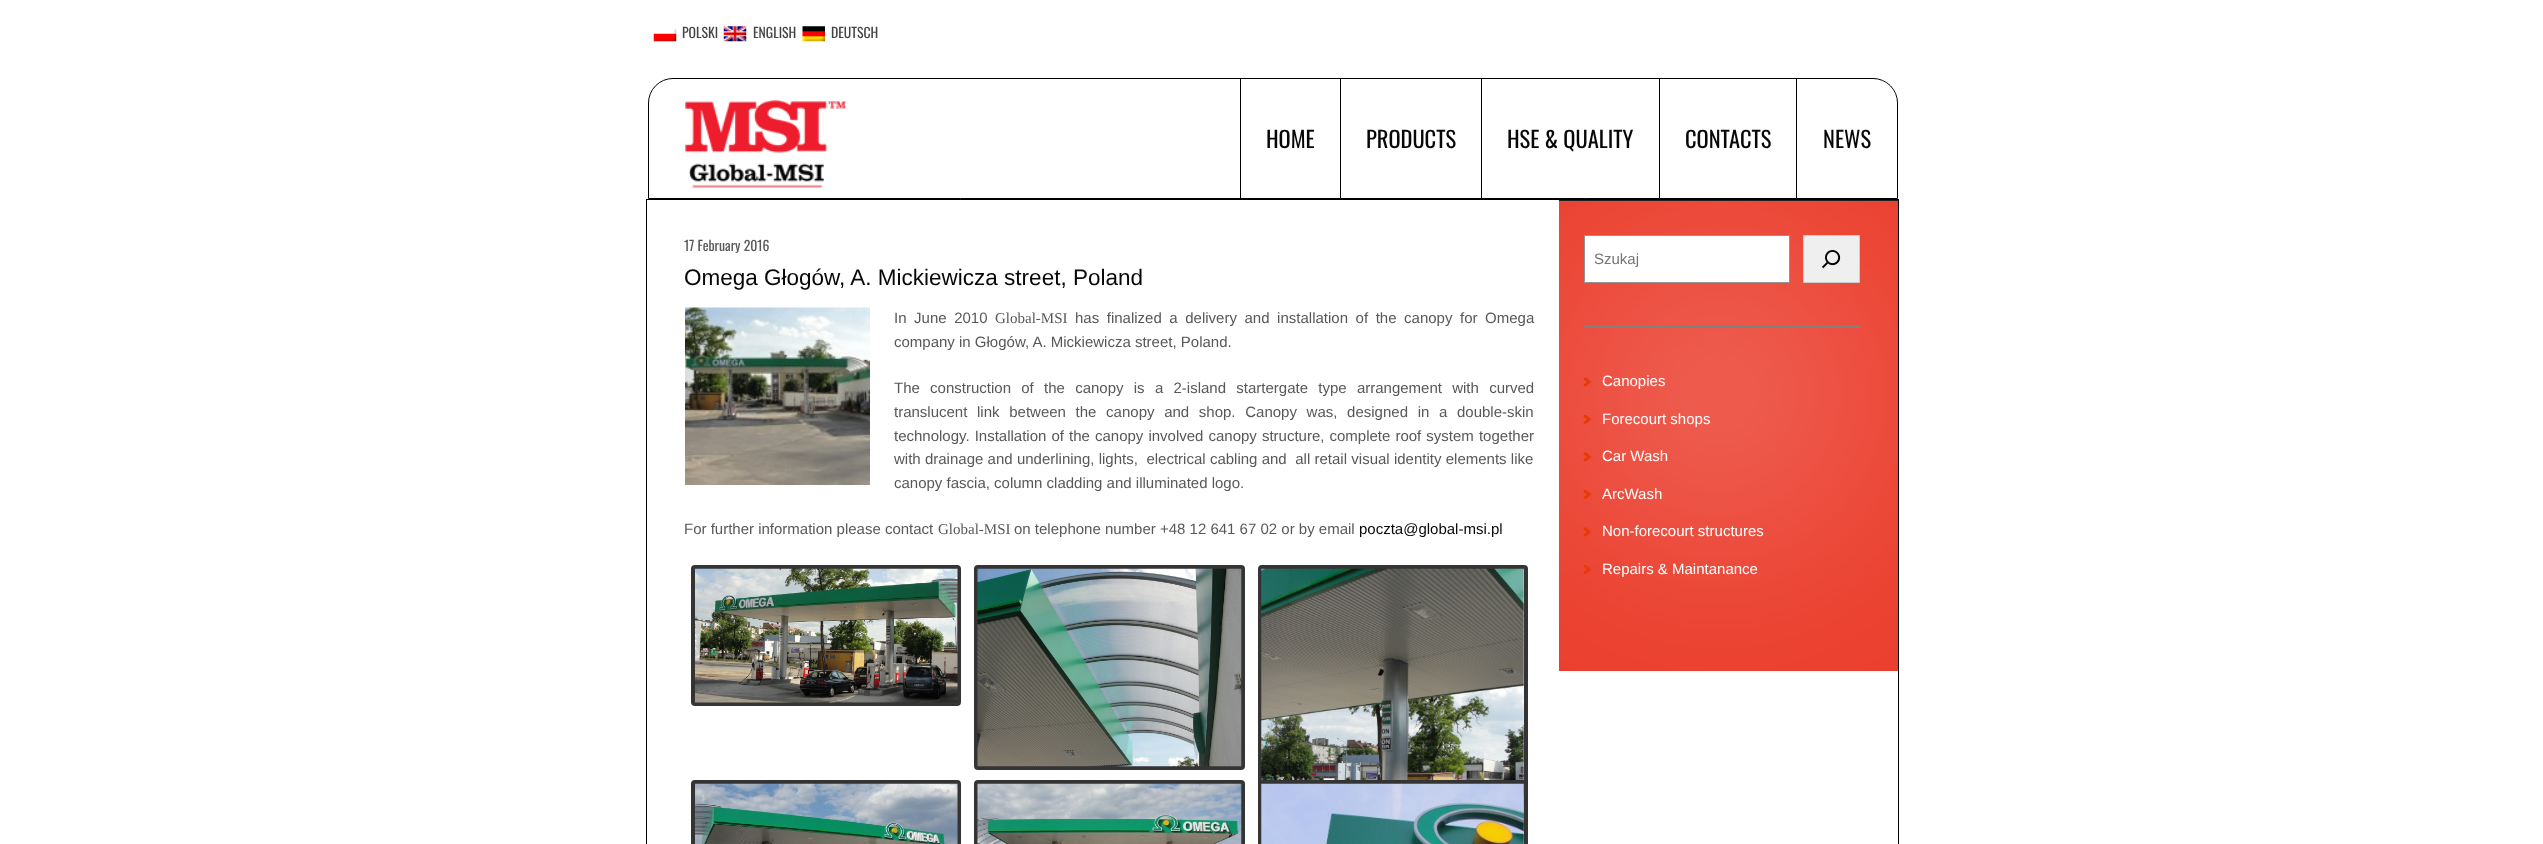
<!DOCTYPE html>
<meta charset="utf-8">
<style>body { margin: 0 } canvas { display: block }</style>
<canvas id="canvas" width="2543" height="844"></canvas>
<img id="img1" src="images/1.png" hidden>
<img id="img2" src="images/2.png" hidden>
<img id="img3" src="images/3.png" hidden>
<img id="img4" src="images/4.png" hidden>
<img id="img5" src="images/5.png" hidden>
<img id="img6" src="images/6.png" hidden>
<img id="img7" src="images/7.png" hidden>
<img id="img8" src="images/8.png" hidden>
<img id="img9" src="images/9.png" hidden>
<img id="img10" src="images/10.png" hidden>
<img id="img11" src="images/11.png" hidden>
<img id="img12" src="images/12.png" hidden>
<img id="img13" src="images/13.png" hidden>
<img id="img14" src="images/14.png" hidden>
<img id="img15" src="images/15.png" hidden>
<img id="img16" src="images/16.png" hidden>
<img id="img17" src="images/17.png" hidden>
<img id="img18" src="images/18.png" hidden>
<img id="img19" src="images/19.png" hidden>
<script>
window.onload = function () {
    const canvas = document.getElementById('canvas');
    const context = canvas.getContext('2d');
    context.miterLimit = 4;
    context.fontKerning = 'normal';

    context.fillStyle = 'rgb(255, 255, 255)';
    context.fillRect(0, 0, 2543, 844);
    context.drawImage(document.getElementById('img1'), 653, 28, 24, 14);
    context.drawImage(document.getElementById('img2'), 723, 26, 24, 16);
    context.drawImage(document.getElementById('img3'), 802, 26, 23, 16);
    context.beginPath();
    context.roundRect(648.5, 78.5, 1249, 120, [24.5, 24.5, 0, 0]);
    context.strokeStyle = 'rgb(0, 0, 0)';
    context.stroke();
    context.drawImage(document.getElementById('img4'), 685, 100, 162, 88);
    context.fillStyle = 'rgb(0, 0, 0)';
    context.fillRect(1240, 79, 1, 119);
    context.fillRect(1340, 79, 1, 119);
    context.fillRect(1481, 79, 1, 119);
    context.fillRect(1659, 79, 1, 119);
    context.fillRect(1796, 79, 1, 119);
    context.strokeRect(646.5, 199.5, 1252, 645);
    context.drawImage(document.getElementById('img5'), 685, 307, 185, 178);
    context.beginPath();
    context.roundRect(693, 567, 266, 137, 2);
    context.strokeStyle = 'rgb(52, 52, 52)';
    context.lineWidth = 4;
    context.stroke();
    context.drawImage(document.getElementById('img6'), 695, 568, 263, 135);
    context.beginPath();
    context.roundRect(976, 567, 267, 201, 2);
    context.stroke();
    context.drawImage(document.getElementById('img7'), 977, 568, 265, 199);
    context.beginPath();
    context.roundRect(1260, 567, 266, 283, 2);
    context.stroke();
    context.drawImage(document.getElementById('img8'), 1261, 568, 263, 276);
    context.beginPath();
    context.roundRect(693, 782, 266, 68, 2);
    context.stroke();
    context.drawImage(document.getElementById('img9'), 695, 783, 263, 61);
    context.beginPath();
    context.roundRect(976, 782, 267, 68, 2);
    context.stroke();
    context.drawImage(document.getElementById('img10'), 977, 783, 265, 61);
    context.beginPath();
    context.roundRect(1260, 782, 266, 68, 2);
    context.stroke();
    context.drawImage(document.getElementById('img11'), 1261, 783, 263, 61);
    context.fillStyle = 'rgb(235, 62, 45)';
    context.fillRect(1559, 201, 339, 470);
    context.drawImage(document.getElementById('img12'), 1559, 201, 339, 470);
    context.fillStyle = 'rgb(32, 32, 32)';
    context.fillRect(1559, 200, 339, 1);
    context.fillStyle = 'rgb(255, 255, 255)';
    context.beginPath();
    context.rect(1584.5, 235.5, 205, 47);
    context.fill();
    context.strokeStyle = 'rgb(148, 148, 148)';
    context.lineWidth = 1;
    context.stroke();
    context.fillStyle = 'rgb(239, 239, 239)';
    context.beginPath();
    context.rect(1803.5, 235.5, 56, 47);
    context.fill();
    context.strokeStyle = 'rgb(204, 204, 204)';
    context.stroke();
    context.drawImage(document.getElementById('img13'), 1822, 250, 19, 19);
    context.fillStyle = 'rgb(128, 128, 128)';
    context.fillRect(1584, 325, 276, 3);
    context.drawImage(document.getElementById('img14'), 1583, 377, 9, 10);
    context.drawImage(document.getElementById('img15'), 1583, 415, 9, 9);
    context.drawImage(document.getElementById('img16'), 1583, 452, 9, 10);
    context.drawImage(document.getElementById('img17'), 1583, 490, 9, 9);
    context.drawImage(document.getElementById('img18'), 1583, 527, 9, 10);
    context.drawImage(document.getElementById('img19'), 1583, 565, 9, 9);
    context.font = '13.75px Oswald';
    context.fillStyle = 'rgb(68, 68, 68)';
    context.fillText('POLSKI', 682, 38);
    context.fillText('ENGLISH', 753, 38);
    context.fillText('DEUTSCH', 831, 38);
    context.font = '22.5px Oswald';
    context.fillStyle = 'rgb(7, 7, 7)';
    context.fillText('HOME', 1266, 148);
    context.fillText('PRODUCTS', 1366, 148);
    context.fillText('HSE & QUALITY', 1507, 148);
    context.fillText('CONTACTS', 1685, 148);
    context.fillText('NEWS', 1823, 148);
    context.font = '13.75px Oswald';
    context.fillStyle = 'rgb(88, 88, 88)';
    context.fillText('17 February 2016', 684, 251);
    context.font = '22.5px Liberation Sans';
    context.fillStyle = 'rgb(7, 7, 7)';
    context.fillText('Omega Głogów, A. Mickiewicza street, Poland', 684, 285);
    context.wordSpacing = '3.4px';
    context.font = '15px Liberation Sans';
    context.fillStyle = 'rgb(88, 88, 88)';
    context.fillText('In June 2010', 894, 323);
    context.wordSpacing = '0px';
    context.font = '15px Liberation Serif';
    context.fillText('Global-MSI', 995, 323);
    context.wordSpacing = '3.4px';
    context.font = '15px Liberation Sans';
    context.fillText('has finalized a delivery and installation of the canopy for Omega', 1075, 323);
    context.wordSpacing = '0px';
    context.fillText('company in Głogów, A. Mickiewicza street, Poland.', 894, 347);
    context.wordSpacing = '6.1px';
    context.fillText('The construction of the canopy is a 2-island startergate type arrangement with curved', 894, 393);
    context.wordSpacing = '5.5px';
    context.fillText('translucent link between the canopy and shop. Canopy was, designed in a double-skin', 894, 417);
    context.wordSpacing = '0.9px';
    context.fillText('technology. Installation of the canopy involved canopy structure, complete roof system together', 894, 441);
    context.wordSpacing = '0.1px';
    context.fillText('with drainage and underlining, lights,  electrical cabling and  all retail visual identity elements like', 894, 464);
    context.wordSpacing = '0px';
    context.fillText('canopy fascia, column cladding and illuminated logo.', 894, 488);
    context.fillText('For further information please contact', 684, 534);
    context.font = '15px Liberation Serif';
    context.fillText('Global-MSI', 938, 534);
    context.font = '15px Liberation Sans';
    context.fillText('on telephone number +48 12 641 67 02 or by email', 1014, 534);
    context.fillStyle = 'rgb(7, 7, 7)';
    context.fillText('poczta@global-msi.pl', 1359, 534);
    context.fillStyle = 'rgb(117, 117, 117)';
    context.fillText('Szukaj', 1594, 264);
    context.fillStyle = 'rgb(255, 255, 255)';
    context.fillText('Canopies', 1602, 386);
    context.fillText('Forecourt shops', 1602, 424);
    context.fillText('Car Wash', 1602, 461);
    context.fillText('ArcWash', 1602, 499);
    context.fillText('Non-forecourt structures', 1602, 536);
    context.fillText('Repairs & Maintanance', 1602, 574);
};
</script>
